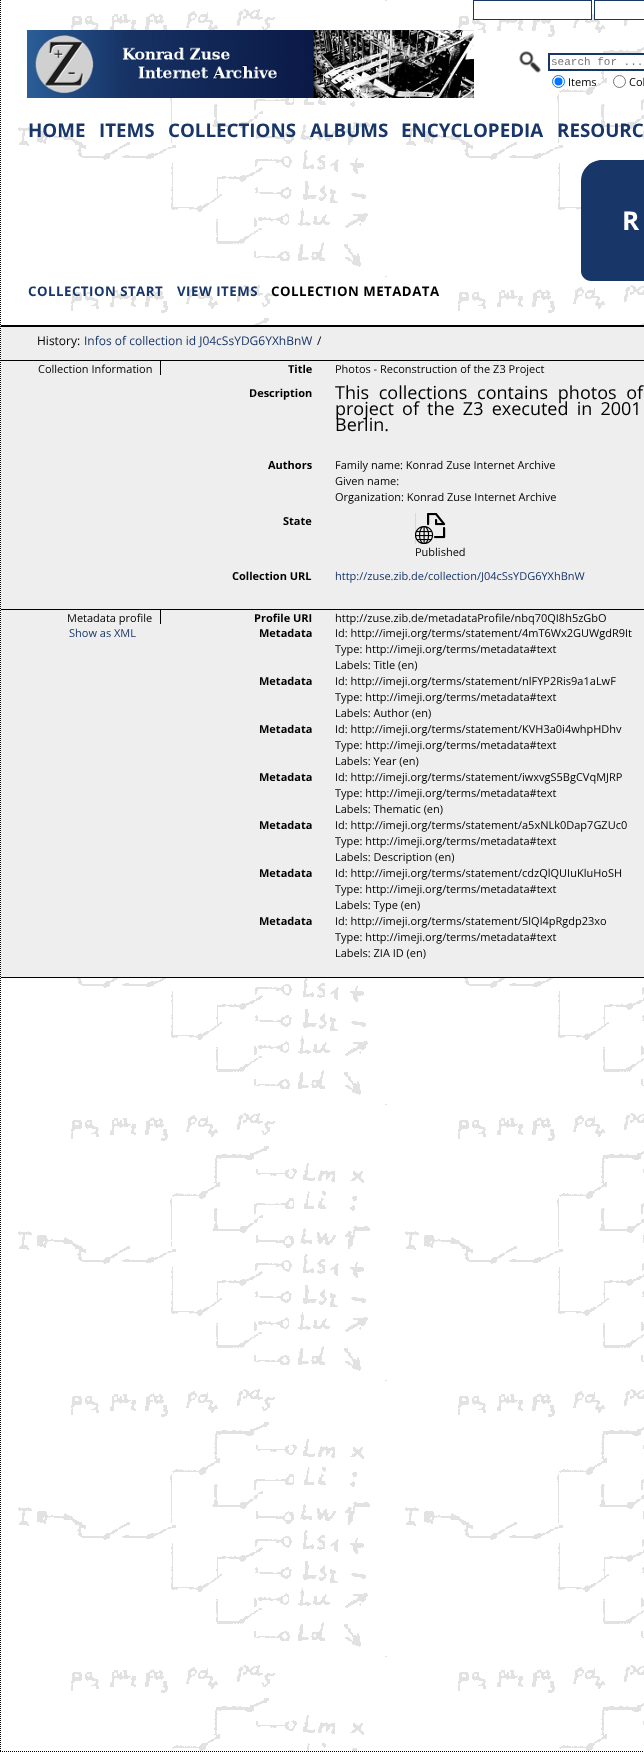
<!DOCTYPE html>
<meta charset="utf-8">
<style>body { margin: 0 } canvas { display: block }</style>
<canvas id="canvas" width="644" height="1752"></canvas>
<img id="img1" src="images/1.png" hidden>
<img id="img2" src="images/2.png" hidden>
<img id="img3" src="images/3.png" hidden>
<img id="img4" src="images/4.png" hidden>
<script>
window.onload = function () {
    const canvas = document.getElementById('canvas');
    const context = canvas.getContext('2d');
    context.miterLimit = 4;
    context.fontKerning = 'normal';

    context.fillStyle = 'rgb(255, 255, 255)';
    context.fillRect(0, 0, 644, 1752);
    context.drawImage(document.getElementById('img1'), 18, 0, 626, 1752);
    context.beginPath();
    context.moveTo(0.5, 0);
    context.lineTo(0.5, 1752);
    context.strokeStyle = 'rgb(0, 0, 0)';
    context.setLineDash([1, 1]);
    context.stroke();
    context.fillRect(474, 11, 117, 8);
    context.strokeStyle = 'rgb(24, 54, 104)';
    context.setLineDash([]);
    context.strokeRect(473.5, 0.5, 118, 19);
    context.fillRect(625, 9, 19, 10);
    context.strokeRect(594.5, 0.5, 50, 19);
    context.drawImage(document.getElementById('img2'), 27, 30, 447, 68);
    context.drawImage(document.getElementById('img3'), 519, 51, 22, 22);
    context.fillRect(601, 55, 43, 14);
    context.lineWidth = 2;
    context.strokeRect(549, 54, 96, 16);
    context.beginPath();
    context.arc(558.5, 81.5, 6, 0, 2 * Math.PI);
    context.strokeStyle = 'rgb(0, 117, 255)';
    context.lineWidth = 1;
    context.stroke();
    context.fillStyle = 'rgb(0, 117, 255)';
    context.beginPath();
    context.arc(558.5, 81.5, 4, 0, 2 * Math.PI);
    context.fill();
    context.beginPath();
    context.arc(619.5, 81.5, 6, 0, 2 * Math.PI);
    context.strokeStyle = 'rgb(118, 118, 118)';
    context.stroke();
    context.fillStyle = 'rgb(24, 54, 104)';
    context.beginPath();
    context.moveTo(602, 160);
    context.lineTo(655, 160);
    context.bezierCurveTo(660.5, 160, 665, 164.5, 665, 170);
    context.lineTo(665, 260);
    context.bezierCurveTo(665, 271.5, 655.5, 281, 644, 281);
    context.lineTo(591, 281);
    context.bezierCurveTo(585.5, 281, 581, 276.5, 581, 271);
    context.lineTo(581, 181);
    context.bezierCurveTo(581, 169.5, 590.5, 160, 602, 160);
    context.closePath();
    context.fill();
    context.fillStyle = 'rgb(238, 238, 238)';
    context.fillRect(1, 327, 643, 650);
    context.fillStyle = 'rgb(0, 0, 0)';
    context.fillRect(1, 325, 643, 2);
    context.fillRect(1, 977, 643, 1);
    context.fillRect(1, 360, 643, 1);
    context.fillRect(160, 361, 1, 14);
    context.drawImage(document.getElementById('img4'), 415, 513, 31, 31);
    context.fillRect(1, 609, 643, 1);
    context.fillRect(160, 610, 1, 14);
    context.beginPath();
    context.moveTo(0, 1751.5);
    context.lineTo(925, 1751.5);
    context.strokeStyle = 'rgb(0, 0, 0)';
    context.setLineDash([1, 1]);
    context.stroke();
    context.font = '11px Liberation Mono';
    context.fillStyle = 'rgb(117, 117, 117)';
    context.fillText('search for ...', 551, 65);
    context.font = '11px Open Sans';
    context.fillStyle = 'rgb(0, 0, 0)';
    context.fillText('Items', 568, 86);
    context.fillText('Col', 629, 86);
    context.font = 'bold 18.75px Open Sans';
    context.fillStyle = 'rgb(24, 54, 104)';
    context.fillText('HOME', 28, 137);
    context.fillText('ITEMS', 99, 137);
    context.fillText('COLLECTIONS', 168, 137);
    context.fillText('ALBUMS', 310, 137);
    context.fillText('ENCYCLOPEDIA', 401, 137);
    context.fillText('RESOURC', 557, 137);
    context.font = 'bold 26px Open Sans';
    context.fillStyle = 'rgb(255, 255, 255)';
    context.fillText('R', 622, 230);
    context.letterSpacing = '0.5px';
    context.font = 'bold 13.25px Open Sans';
    context.fillStyle = 'rgb(24, 54, 104)';
    context.fillText('COLLECTION START', 28, 296);
    context.fillText('VIEW ITEMS', 177, 296);
    context.fillStyle = 'rgb(0, 0, 0)';
    context.fillText('COLLECTION METADATA', 271, 296);
    context.letterSpacing = '0px';
    context.font = '12px Open Sans';
    context.fillText('History:', 37, 345);
    context.fillStyle = 'rgb(24, 54, 104)';
    context.fillText('Infos of collection id J04cSsYDG6YXhBnW', 84, 345);
    context.fillStyle = 'rgb(0, 0, 0)';
    context.fillText('/', 317, 345);
    context.font = '11px Open Sans';
    context.fillText('Collection Information', 38, 373);
    context.font = 'bold 11px Open Sans';
    context.fillText('Title', 288, 373);
    context.font = '11px Open Sans';
    context.fillText('Photos - Reconstruction of the Z3 Project', 335, 373);
    context.font = 'bold 11px Open Sans';
    context.fillText('Description', 249, 397);
    context.wordSpacing = '5px';
    context.font = '18px Open Sans';
    context.fillText('This collections contains photos of', 335, 399);
    context.wordSpacing = '3.5px';
    context.fillText('project of the Z3 executed in 2001', 335, 415);
    context.wordSpacing = '0px';
    context.fillText('Berlin.', 335, 431);
    context.font = 'bold 11px Open Sans';
    context.fillText('Authors', 268, 469);
    context.font = '11px Open Sans';
    context.fillText('Family name: Konrad Zuse Internet Archive', 335, 469);
    context.fillText('Given name:', 335, 485);
    context.fillText('Organization: Konrad Zuse Internet Archive', 335, 501);
    context.font = 'bold 11px Open Sans';
    context.fillText('State', 283, 525);
    context.font = '11px Open Sans';
    context.fillText('Published', 415, 556);
    context.font = 'bold 11px Open Sans';
    context.fillText('Collection URL', 232, 580);
    context.font = '11px Open Sans';
    context.fillStyle = 'rgb(24, 54, 104)';
    context.fillText('http://zuse.zib.de/collection/J04cSsYDG6YXhBnW', 335, 580);
    context.fillStyle = 'rgb(0, 0, 0)';
    context.fillText('Metadata profile', 67, 622);
    context.fillStyle = 'rgb(24, 54, 104)';
    context.fillText('Show as XML', 69, 637);
    context.font = 'bold 11px Open Sans';
    context.fillStyle = 'rgb(0, 0, 0)';
    context.fillText('Profile URI', 254, 622);
    context.font = '11px Open Sans';
    context.fillText('http://zuse.zib.de/metadataProfile/nbq70QI8h5zGbO', 335, 622);
    context.font = 'bold 11px Open Sans';
    context.fillText('Metadata', 259, 637);
    context.font = '11px Open Sans';
    context.fillText('Id: http://imeji.org/terms/statement/4mT6Wx2GUWgdR9It', 335, 637);
    context.fillText('Type: http://imeji.org/terms/metadata#text', 335, 653);
    context.fillText('Labels: Title (en)', 335, 669);
    context.font = 'bold 11px Open Sans';
    context.fillText('Metadata', 259, 685);
    context.font = '11px Open Sans';
    context.fillText('Id: http://imeji.org/terms/statement/nlFYP2Ris9a1aLwF', 335, 685);
    context.fillText('Type: http://imeji.org/terms/metadata#text', 335, 701);
    context.fillText('Labels: Author (en)', 335, 717);
    context.font = 'bold 11px Open Sans';
    context.fillText('Metadata', 259, 733);
    context.font = '11px Open Sans';
    context.fillText('Id: http://imeji.org/terms/statement/KVH3a0i4whpHDhv', 335, 733);
    context.fillText('Type: http://imeji.org/terms/metadata#text', 335, 749);
    context.fillText('Labels: Year (en)', 335, 765);
    context.font = 'bold 11px Open Sans';
    context.fillText('Metadata', 259, 781);
    context.font = '11px Open Sans';
    context.fillText('Id: http://imeji.org/terms/statement/iwxvgS5BgCVqMJRP', 335, 781);
    context.fillText('Type: http://imeji.org/terms/metadata#text', 335, 797);
    context.fillText('Labels: Thematic (en)', 335, 813);
    context.font = 'bold 11px Open Sans';
    context.fillText('Metadata', 259, 829);
    context.font = '11px Open Sans';
    context.fillText('Id: http://imeji.org/terms/statement/a5xNLk0Dap7GZUc0', 335, 829);
    context.fillText('Type: http://imeji.org/terms/metadata#text', 335, 845);
    context.fillText('Labels: Description (en)', 335, 861);
    context.font = 'bold 11px Open Sans';
    context.fillText('Metadata', 259, 877);
    context.font = '11px Open Sans';
    context.fillText('Id: http://imeji.org/terms/statement/cdzQlQUIuKluHoSH', 335, 877);
    context.fillText('Type: http://imeji.org/terms/metadata#text', 335, 893);
    context.fillText('Labels: Type (en)', 335, 909);
    context.font = 'bold 11px Open Sans';
    context.fillText('Metadata', 259, 925);
    context.font = '11px Open Sans';
    context.fillText('Id: http://imeji.org/terms/statement/5lQl4pRgdp23xo', 335, 925);
    context.fillText('Type: http://imeji.org/terms/metadata#text', 335, 941);
    context.fillText('Labels: ZIA ID (en)', 335, 957);
};
</script>
